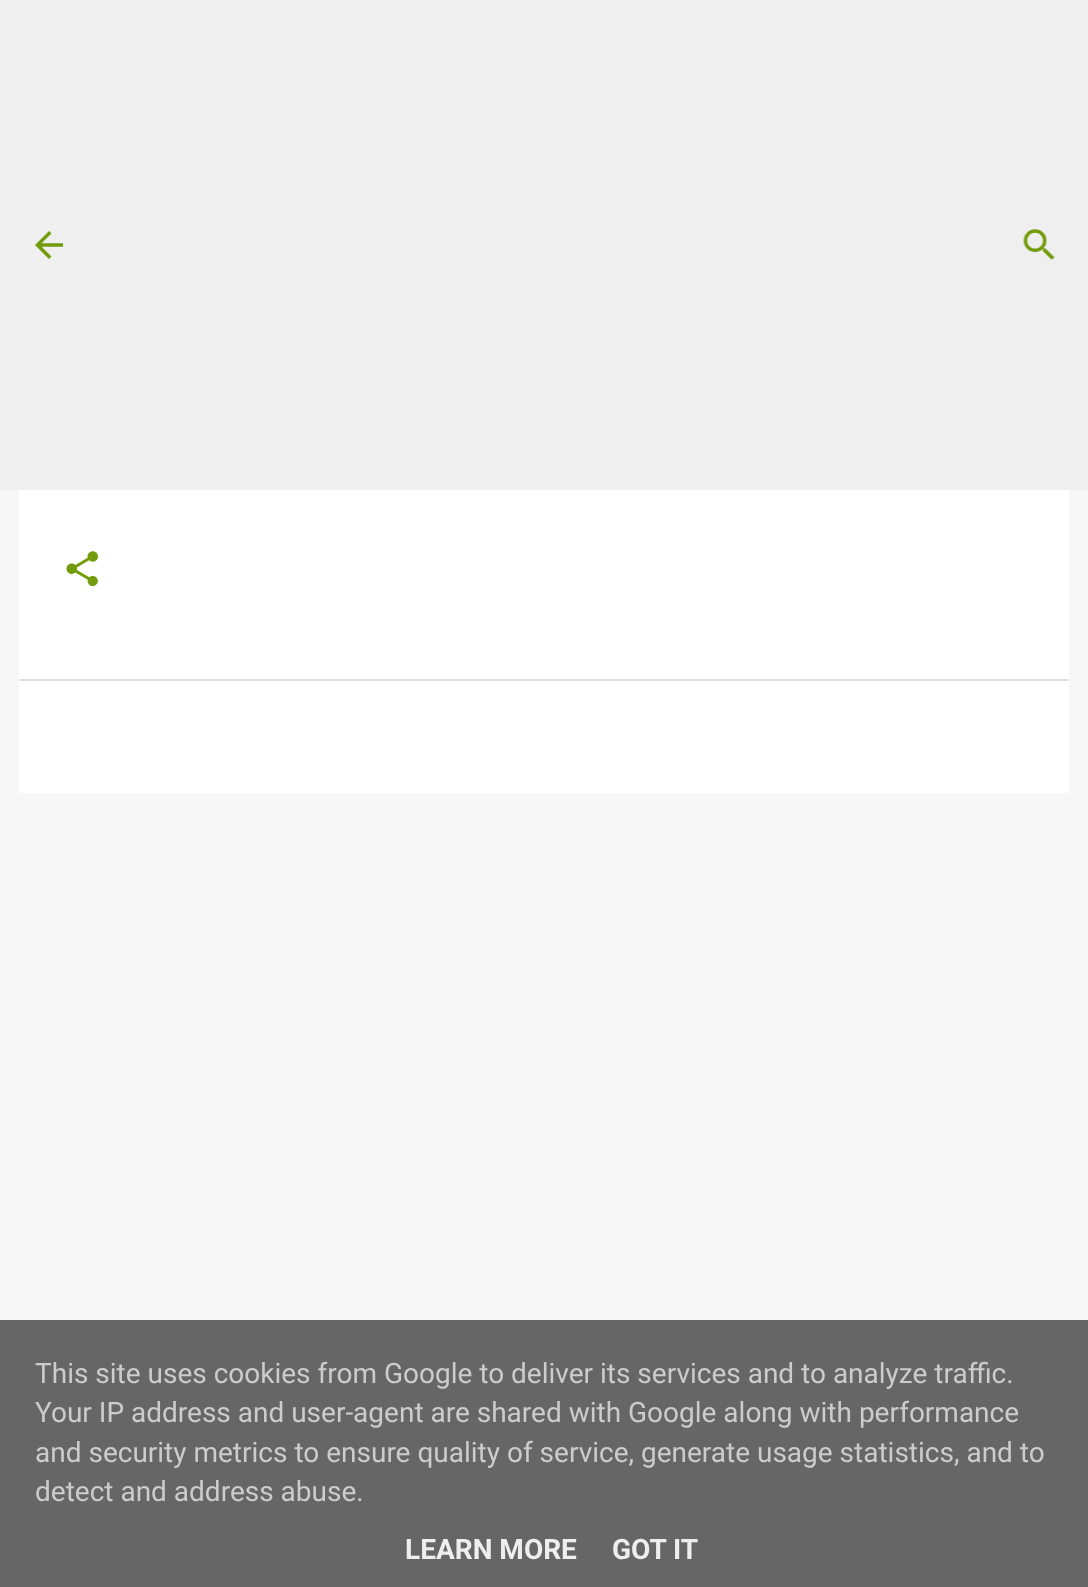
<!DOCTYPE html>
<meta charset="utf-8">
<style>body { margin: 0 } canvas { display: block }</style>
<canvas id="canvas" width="1088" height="1587"></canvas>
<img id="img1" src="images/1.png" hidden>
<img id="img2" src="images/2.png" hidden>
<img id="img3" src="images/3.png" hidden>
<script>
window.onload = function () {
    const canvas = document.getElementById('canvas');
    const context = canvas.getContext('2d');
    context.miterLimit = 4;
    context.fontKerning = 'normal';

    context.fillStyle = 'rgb(247, 247, 247)';
    context.fillRect(0, 0, 1088, 1587);
    context.fillStyle = 'rgb(239, 239, 239)';
    context.fillRect(0, 0, 1088, 490);
    context.drawImage(document.getElementById('img1'), 35, 231, 28, 28);
    context.drawImage(document.getElementById('img2'), 1023, 229, 32, 31);
    context.fillStyle = 'rgb(255, 255, 255)';
    context.fillRect(19, 490, 1050, 189);
    context.drawImage(document.getElementById('img3'), 66, 551, 32, 35);
    context.fillRect(19, 681, 1050, 112);
    context.fillStyle = 'rgb(224, 224, 224)';
    context.fillRect(19, 679, 1050, 2);
    context.fillStyle = 'rgb(102, 102, 102)';
    context.fillRect(0, 1320, 1088, 267);
    context.font = '28px Roboto';
    context.fillStyle = 'rgb(204, 204, 204)';
    context.fillText('This site uses cookies from Google to deliver its services and to analyze traffic.', 35, 1383);
    context.fillText('Your IP address and user-agent are shared with Google along with performance', 35, 1422);
    context.fillText('and security metrics to ensure quality of service, generate usage statistics, and to', 35, 1462);
    context.fillText('detect and address abuse.', 35, 1501);
    context.font = 'bold 28px Roboto';
    context.fillStyle = 'rgb(238, 238, 238)';
    context.fillText('LEARN MORE', 405, 1559);
    context.fillText('GOT IT', 612, 1559);
};
</script>
